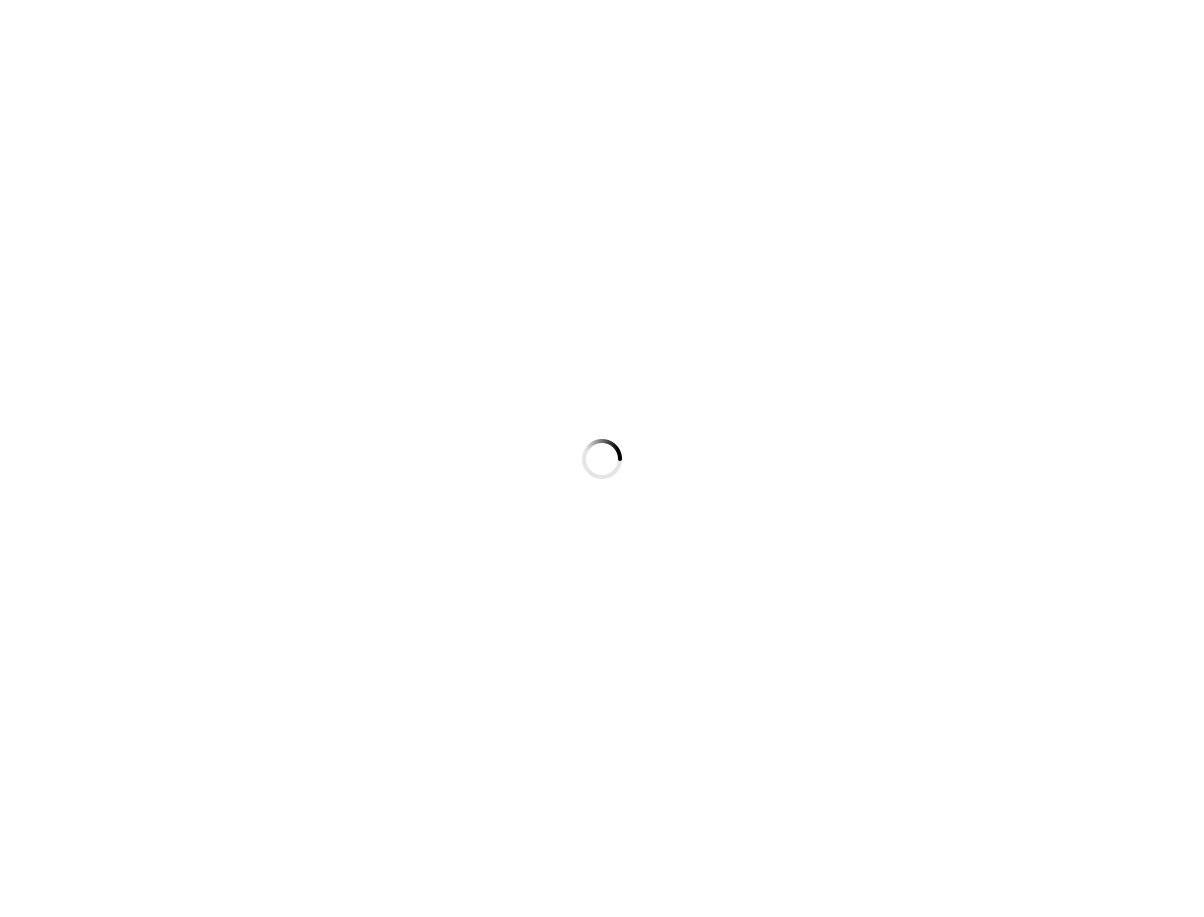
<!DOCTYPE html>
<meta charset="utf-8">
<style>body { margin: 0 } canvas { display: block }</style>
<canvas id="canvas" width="1204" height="917"></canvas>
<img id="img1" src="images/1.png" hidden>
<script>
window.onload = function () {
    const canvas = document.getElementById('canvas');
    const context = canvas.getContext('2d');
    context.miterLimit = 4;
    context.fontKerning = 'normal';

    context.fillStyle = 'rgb(255, 255, 255)';
    context.fillRect(0, 0, 1204, 917);
    context.drawImage(document.getElementById('img1'), 582, 439, 40, 40);
};
</script>
